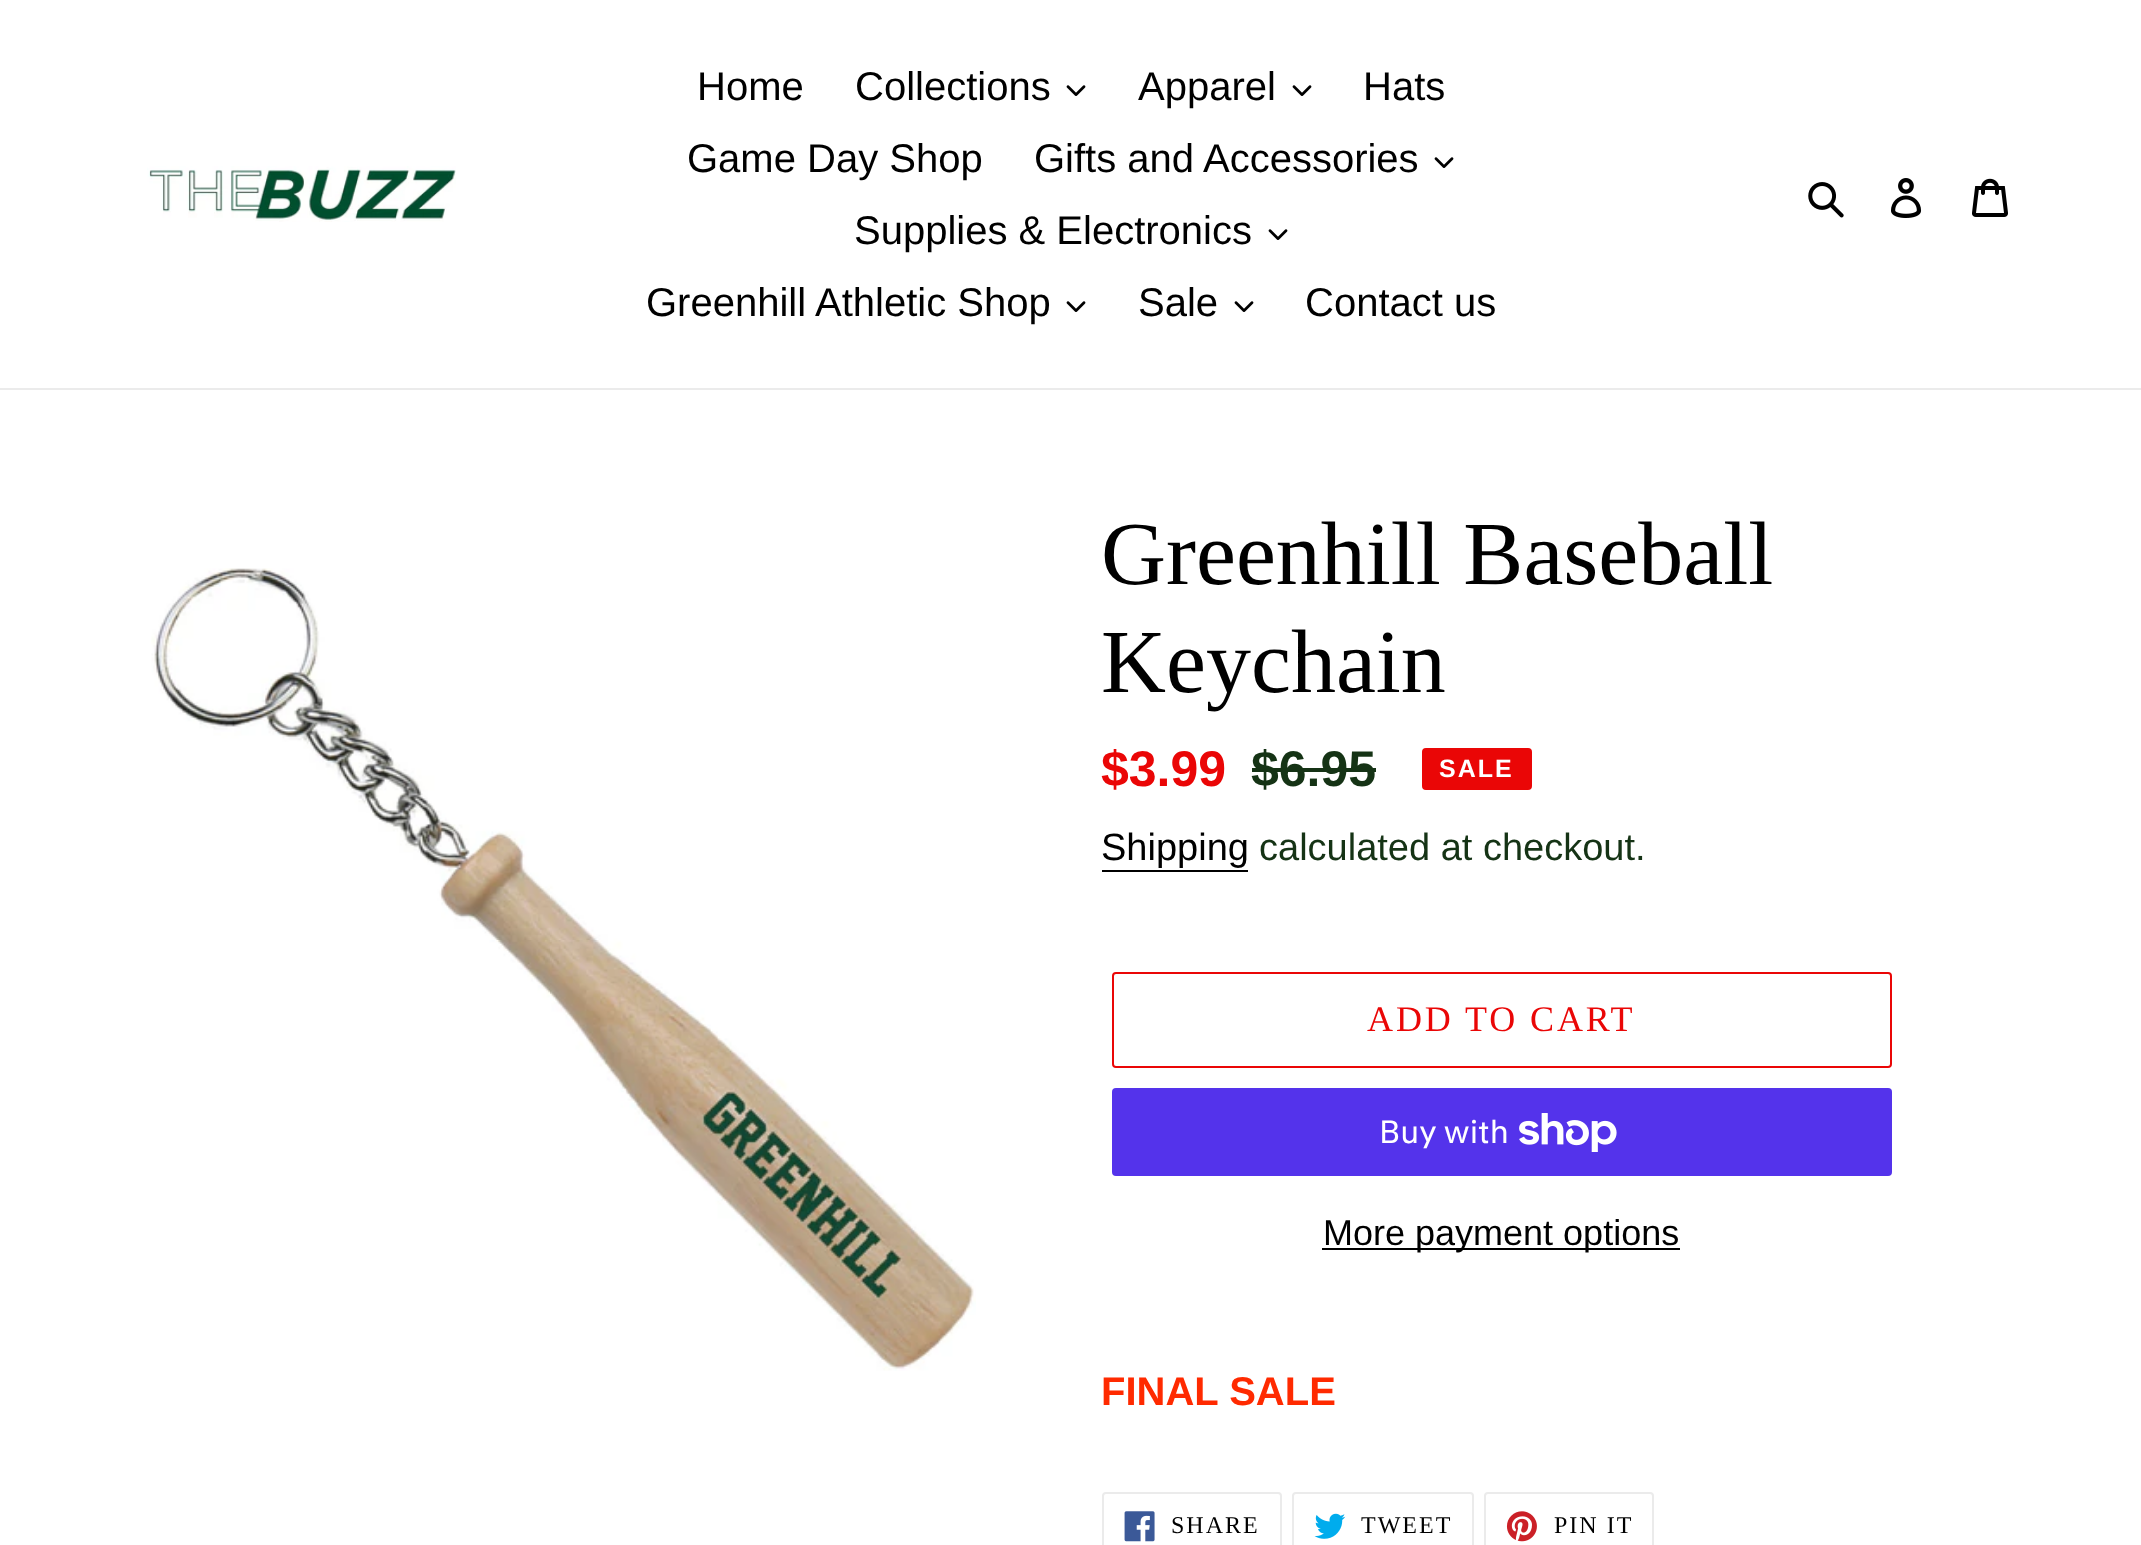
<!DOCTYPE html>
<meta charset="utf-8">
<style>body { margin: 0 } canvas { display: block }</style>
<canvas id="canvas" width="2141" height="1545"></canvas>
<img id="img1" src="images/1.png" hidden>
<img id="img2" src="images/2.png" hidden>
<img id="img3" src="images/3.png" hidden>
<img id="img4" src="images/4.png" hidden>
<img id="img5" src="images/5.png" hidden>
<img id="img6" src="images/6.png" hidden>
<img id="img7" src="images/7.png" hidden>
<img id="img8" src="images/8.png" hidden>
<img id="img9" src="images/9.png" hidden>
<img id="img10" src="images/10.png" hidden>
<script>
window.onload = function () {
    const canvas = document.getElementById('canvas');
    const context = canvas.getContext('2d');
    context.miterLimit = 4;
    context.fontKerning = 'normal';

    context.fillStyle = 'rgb(255, 255, 255)';
    context.fillRect(0, 0, 2141, 1545);
    context.fillStyle = 'rgb(235, 235, 235)';
    context.fillRect(0, 388, 2141, 2);
    context.drawImage(document.getElementById('img1'), 147, 166, 309, 56);
    context.drawImage(document.getElementById('img2'), 1066, 85, 20, 11);
    context.drawImage(document.getElementById('img2'), 1292, 85, 20, 11);
    context.drawImage(document.getElementById('img2'), 1434, 157, 20, 11);
    context.drawImage(document.getElementById('img2'), 1268, 229, 20, 11);
    context.drawImage(document.getElementById('img2'), 1066, 301, 20, 11);
    context.drawImage(document.getElementById('img2'), 1234, 301, 20, 11);
    context.drawImage(document.getElementById('img3'), 1808, 182, 36, 36);
    context.drawImage(document.getElementById('img4'), 1891, 178, 31, 40);
    context.drawImage(document.getElementById('img5'), 1972, 178, 36, 39);
    context.drawImage(document.getElementById('img6'), 151, 568, 825, 803);
    context.fillStyle = 'rgb(21, 51, 21)';
    context.fillRect(1252, 768, 124, 4);
    context.fillStyle = 'rgb(234, 6, 6)';
    context.beginPath();
    context.roundRect(1423, 749, 108, 40, 3);
    context.fill();
    context.strokeStyle = 'rgb(234, 6, 6)';
    context.lineWidth = 2;
    context.stroke();
    context.fillStyle = 'rgb(0, 0, 0)';
    context.fillRect(1102, 870, 146, 2);
    context.beginPath();
    context.roundRect(1113, 973, 778, 94, 3);
    context.stroke();
    context.fillStyle = 'rgb(84, 51, 235)';
    context.beginPath();
    context.roundRect(1112, 1088, 780, 88, 4);
    context.fill();
    context.drawImage(document.getElementById('img7'), 1519, 1113, 98, 39);
    context.fillStyle = 'rgb(0, 0, 0)';
    context.fillRect(1322, 1248, 358, 2);
    context.beginPath();
    context.roundRect(1103, 1493, 178, 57, 3);
    context.strokeStyle = 'rgb(235, 235, 235)';
    context.stroke();
    context.drawImage(document.getElementById('img8'), 1124, 1511, 31, 31);
    context.beginPath();
    context.roundRect(1293, 1493, 180, 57, 3);
    context.stroke();
    context.drawImage(document.getElementById('img9'), 1314, 1513, 32, 26);
    context.beginPath();
    context.roundRect(1485, 1493, 168, 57, 3);
    context.stroke();
    context.drawImage(document.getElementById('img10'), 1506, 1511, 31, 31);
    context.font = '40px Liberation Sans';
    context.fillText('Home', 697, 100);
    context.fillText('Collections', 855, 100);
    context.fillText('Apparel', 1138, 100);
    context.fillText('Hats', 1363, 100);
    context.fillText('Game Day Shop', 687, 172);
    context.fillText('Gifts and Accessories', 1034, 172);
    context.fillText('Supplies & Electronics', 854, 244);
    context.fillText('Greenhill Athletic Shop', 646, 316);
    context.fillText('Sale', 1138, 316);
    context.fillText('Contact us', 1305, 316);
    context.font = '90px Liberation Serif';
    context.fillText('Greenhill Baseball', 1101, 584);
    context.fillText('Keychain', 1101, 692);
    context.font = 'bold 50px Liberation Sans';
    context.fillStyle = 'rgb(234, 6, 6)';
    context.fillText('$3.99', 1101, 786);
    context.fillStyle = 'rgb(21, 51, 21)';
    context.fillText('$6.95', 1251, 786);
    context.letterSpacing = '2px';
    context.font = 'bold 25px Liberation Sans';
    context.fillStyle = 'rgb(255, 255, 255)';
    context.fillText('SALE', 1439, 777);
    context.letterSpacing = '0px';
    context.font = '38px Liberation Sans';
    context.fillStyle = 'rgb(0, 0, 0)';
    context.fillText('Shipping', 1101, 860);
    context.fillStyle = 'rgb(21, 51, 21)';
    context.fillText('calculated at checkout.', 1259, 860);
    context.letterSpacing = '2.9px';
    context.font = '36px Liberation Serif';
    context.fillStyle = 'rgb(234, 6, 6)';
    context.fillText('ADD TO CART', 1367, 1031);
    context.letterSpacing = '0px';
    context.font = '32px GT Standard';
    context.fillStyle = 'rgb(255, 255, 255)';
    context.fillText('Buy with', 1379, 1143);
    context.font = '36px Liberation Sans';
    context.fillStyle = 'rgb(0, 0, 0)';
    context.fillText('More payment options', 1323, 1245);
    context.font = 'bold 40px Liberation Sans';
    context.fillStyle = 'rgb(255, 42, 0)';
    context.fillText('FINAL SALE', 1101, 1405);
    context.letterSpacing = '2px';
    context.font = '24px Liberation Serif';
    context.fillStyle = 'rgb(0, 0, 0)';
    context.fillText('SHARE', 1171, 1533);
    context.fillText('TWEET', 1361, 1533);
    context.fillText('PIN IT', 1554, 1533);
};
</script>
